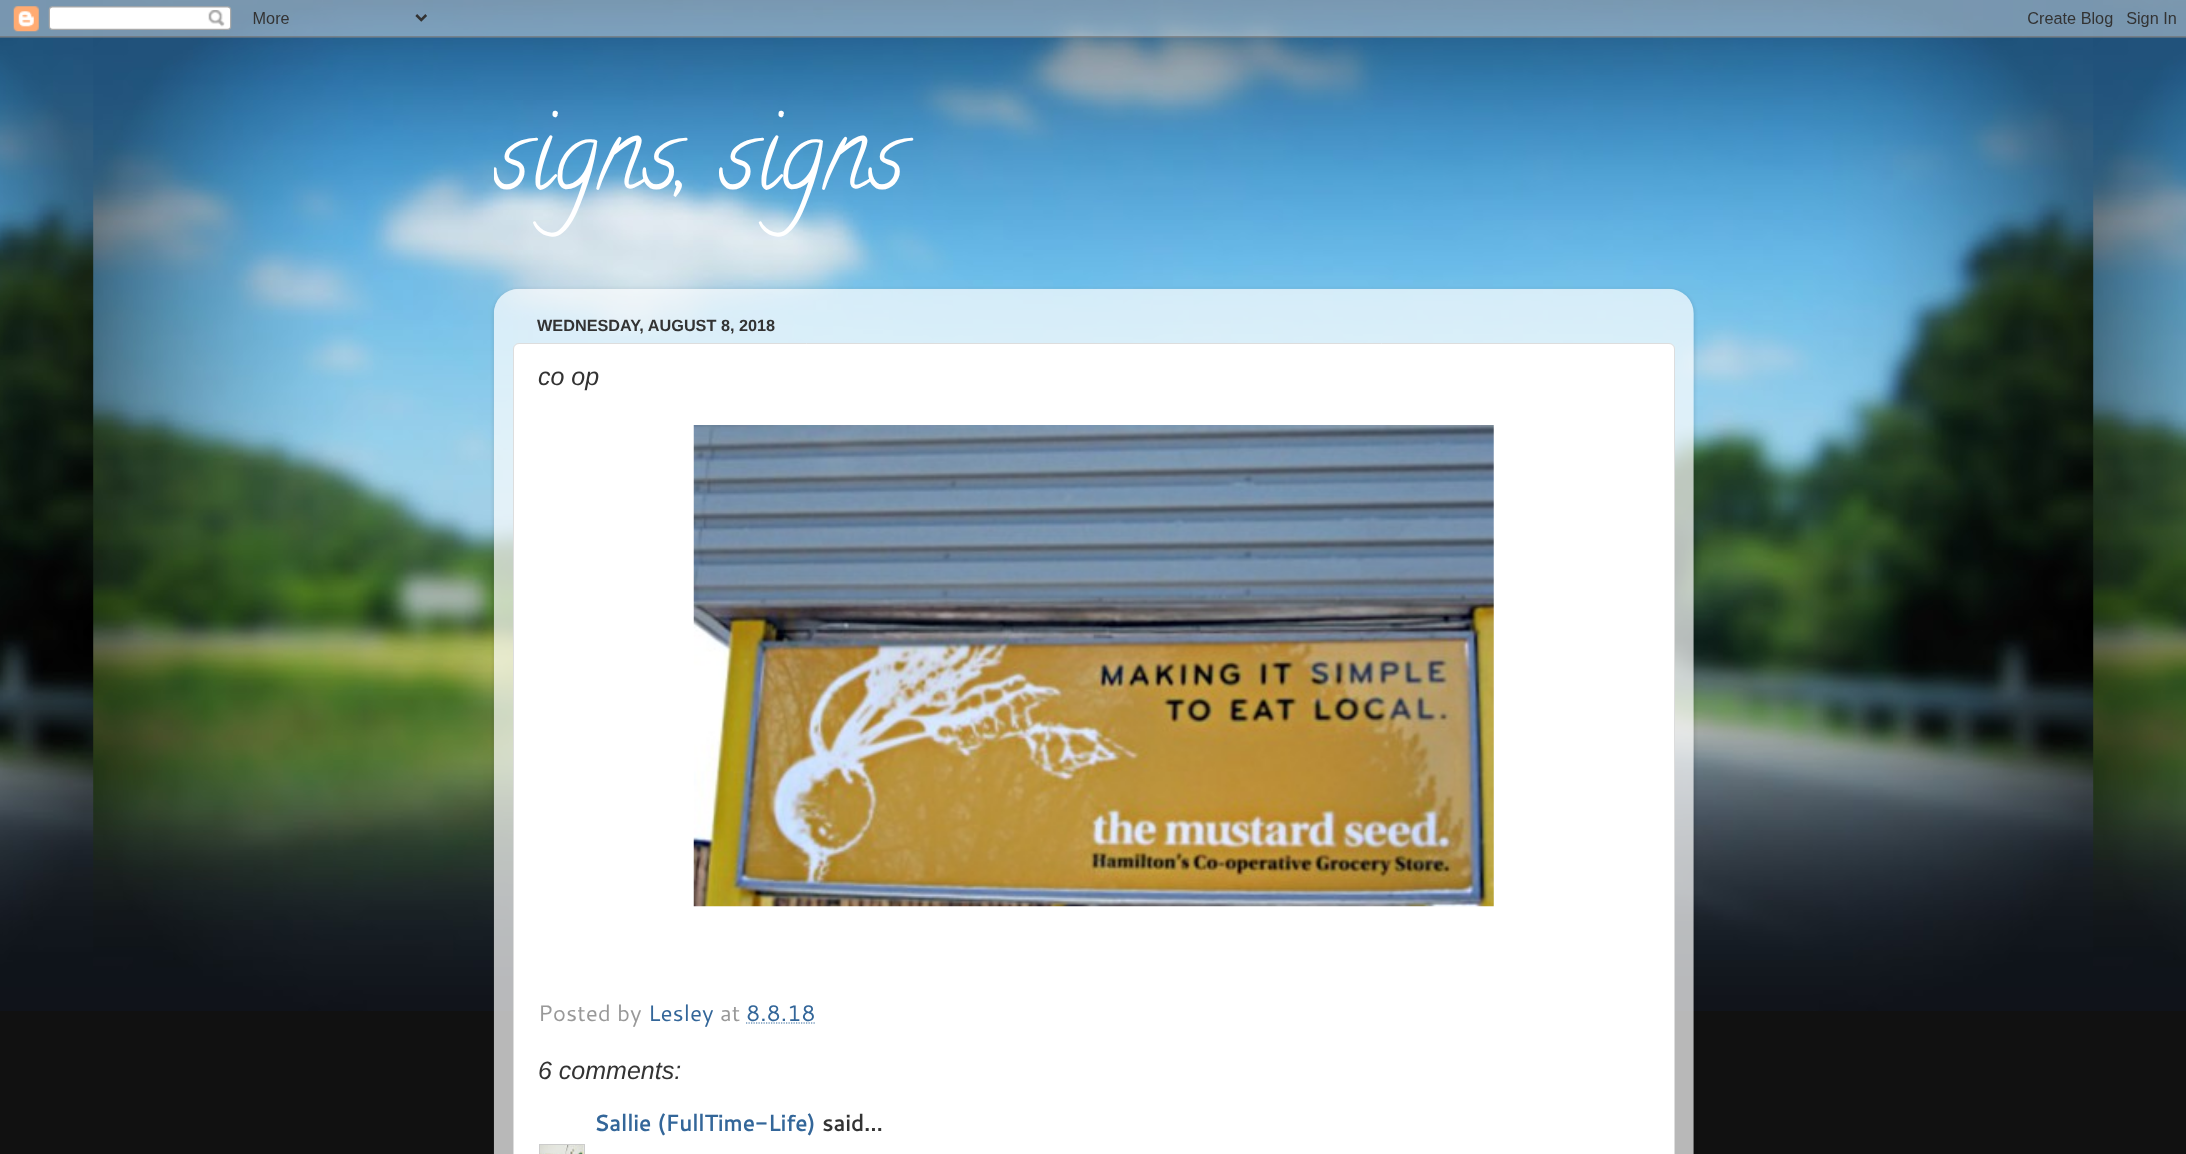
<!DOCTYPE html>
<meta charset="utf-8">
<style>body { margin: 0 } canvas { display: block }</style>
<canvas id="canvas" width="2186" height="1154"></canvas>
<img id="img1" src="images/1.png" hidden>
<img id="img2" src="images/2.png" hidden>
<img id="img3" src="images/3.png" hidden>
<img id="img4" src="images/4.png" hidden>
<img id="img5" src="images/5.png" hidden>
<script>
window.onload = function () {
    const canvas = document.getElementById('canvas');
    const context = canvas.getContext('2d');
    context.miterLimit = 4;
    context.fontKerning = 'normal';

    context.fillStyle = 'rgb(17, 17, 17)';
    context.fillRect(0, 0, 2186, 1154);
    context.drawImage(document.getElementById('img1'), 0, 0, 2186, 1011);
    context.drawImage(document.getElementById('img2'), 0, 0, 2186, 38);
    context.save();
    context.beginPath();
    context.moveTo(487, 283);
    context.lineTo(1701, 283);
    context.lineTo(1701, 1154);
    context.lineTo(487, 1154);
    context.closePath();
    context.moveTo(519, 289);
    context.lineTo(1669, 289);
    context.bezierCurveTo(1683, 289, 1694, 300, 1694, 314);
    context.lineTo(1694, 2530);
    context.lineTo(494, 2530);
    context.lineTo(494, 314);
    context.bezierCurveTo(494, 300, 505, 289, 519, 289);
    context.closePath();
    context.clip('evenodd');
    context.fillStyle = 'rgba(0, 0, 0, 0.15)';
    context.filter = 'blur(2px)';
    context.beginPath();
    context.roundRect(494, 290, 1200, 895, 25);
    context.fill();
    context.filter = 'none';
    context.restore();
    context.drawImage(document.getElementById('img3'), 493, 288, 1201, 866);
    context.fillStyle = 'rgb(255, 255, 255)';
    context.beginPath();
    context.roundRect(513.5, 343.5, 1161, 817, 5.5);
    context.fill();
    context.strokeStyle = 'rgb(221, 221, 221)';
    context.stroke();
    context.drawImage(document.getElementById('img4'), 693, 425, 801, 482);
    context.beginPath();
    context.moveTo(746, 1023);
    context.lineTo(816, 1023);
    context.strokeStyle = 'rgb(51, 102, 153)';
    context.lineWidth = 1.2;
    context.setLineDash([1.25, 1.25]);
    context.stroke();
    context.strokeStyle = 'rgb(204, 204, 204)';
    context.lineWidth = 1;
    context.setLineDash([]);
    context.strokeRect(539.5, 1144.5, 45, 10);
    context.drawImage(document.getElementById('img5'), 540, 1145, 44, 9);
    context.save();
    context.beginPath();
    context.rect(494, 63, 1200, 215);
    context.clip();
    context.font = '100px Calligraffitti';
    context.fillText('signs, signs', 493, 186);
    context.restore();
    context.font = 'bold 16.25px Liberation Sans';
    context.fillStyle = 'rgb(51, 51, 51)';
    context.fillText('WEDNESDAY, AUGUST 8, 2018', 537, 331);
    context.font = 'italic 25px Liberation Sans';
    context.fillText('co op', 538, 385);
    context.font = '22.5px Cantarell';
    context.fillStyle = 'rgb(153, 153, 153)';
    context.fillText('Posted by', 538, 1021);
    context.fillStyle = 'rgb(51, 102, 153)';
    context.fillText('Lesley', 648, 1021);
    context.fillStyle = 'rgb(153, 153, 153)';
    context.fillText('at', 720, 1021);
    context.fillStyle = 'rgb(51, 102, 153)';
    context.fillText('8.8.18', 746, 1021);
    context.font = 'italic 25px Liberation Sans';
    context.fillStyle = 'rgb(51, 51, 51)';
    context.fillText('6 comments:', 538, 1079);
    context.font = 'bold 22.5px Cantarell';
    context.fillStyle = 'rgb(51, 102, 153)';
    context.fillText('Sallie (FullTime-Life)', 594, 1131);
    context.fillStyle = 'rgb(51, 51, 51)';
    context.fillText('said...', 822, 1131);
};
</script>
